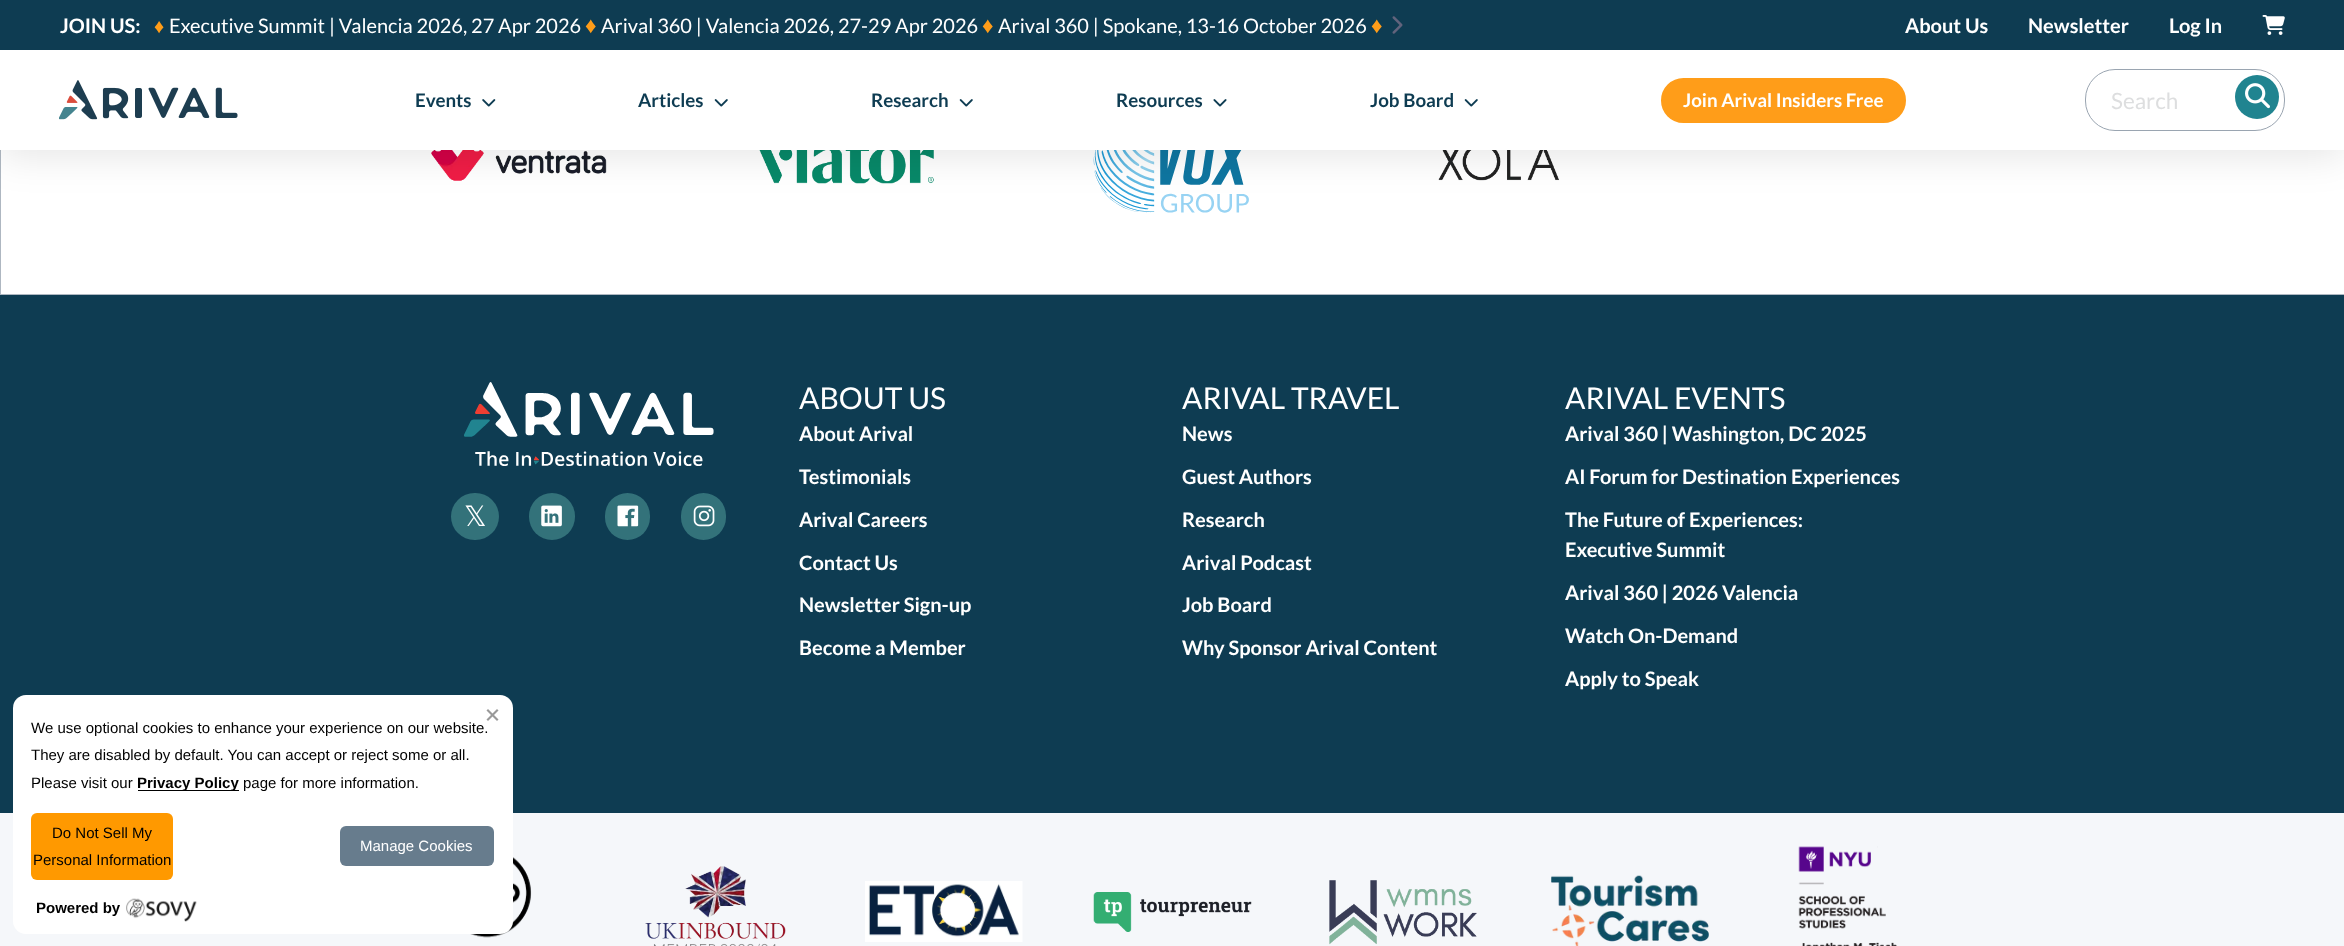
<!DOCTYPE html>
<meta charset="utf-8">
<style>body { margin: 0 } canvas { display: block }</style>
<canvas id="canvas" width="2344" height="946"></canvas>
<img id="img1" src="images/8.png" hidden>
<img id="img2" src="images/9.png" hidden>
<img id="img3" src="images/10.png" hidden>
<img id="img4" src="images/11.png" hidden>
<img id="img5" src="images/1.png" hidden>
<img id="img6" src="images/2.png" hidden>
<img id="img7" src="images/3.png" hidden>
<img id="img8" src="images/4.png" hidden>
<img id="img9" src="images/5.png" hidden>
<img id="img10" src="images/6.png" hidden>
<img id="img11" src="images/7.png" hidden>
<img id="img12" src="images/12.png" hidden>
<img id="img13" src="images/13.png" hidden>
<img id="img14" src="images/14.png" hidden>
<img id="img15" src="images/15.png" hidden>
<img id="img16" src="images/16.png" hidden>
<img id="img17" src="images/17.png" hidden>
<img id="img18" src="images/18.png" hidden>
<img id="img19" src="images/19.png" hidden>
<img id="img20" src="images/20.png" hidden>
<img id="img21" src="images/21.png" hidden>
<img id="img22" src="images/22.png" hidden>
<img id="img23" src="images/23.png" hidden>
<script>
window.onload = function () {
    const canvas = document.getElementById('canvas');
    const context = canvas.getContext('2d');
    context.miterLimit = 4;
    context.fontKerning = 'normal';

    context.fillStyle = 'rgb(245, 247, 250)';
    context.fillRect(0, 0, 2344, 946);
    context.fillStyle = 'rgb(255, 255, 255)';
    context.fillRect(1, 150, 2343, 144);
    context.strokeStyle = 'rgb(174, 183, 193)';
    context.strokeRect(0.5, -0.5, 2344, 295);
    context.drawImage(document.getElementById('img1'), 431, 150, 176, 31);
    context.drawImage(document.getElementById('img2'), 759, 150, 175, 34);
    context.drawImage(document.getElementById('img3'), 1093, 150, 156, 63);
    context.drawImage(document.getElementById('img4'), 1438, 150, 121, 31);
    context.fillStyle = 'rgba(0, 0, 0, 0.1)';
    context.filter = 'blur(19px)';
    context.beginPath();
    context.rect(0, 6, 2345, 150);
    context.fill();
    context.filter = 'none';
    context.fillStyle = 'rgb(14, 60, 82)';
    context.fillRect(0, 0, 2344, 50);
    context.drawImage(document.getElementById('img5'), 1392, 16, 11, 18);
    context.drawImage(document.getElementById('img6'), 2262, 15, 23, 20);
    context.fillStyle = 'rgb(255, 255, 255)';
    context.fillRect(0, 50, 2344, 100);
    context.drawImage(document.getElementById('img7'), 59, 80, 179, 40);
    context.drawImage(document.getElementById('img8'), 482, 99, 14, 8);
    context.drawImage(document.getElementById('img9'), 714, 99, 14, 8);
    context.drawImage(document.getElementById('img9'), 959, 99, 14, 8);
    context.drawImage(document.getElementById('img10'), 1213, 99, 14, 8);
    context.drawImage(document.getElementById('img9'), 1464, 99, 14, 8);
    context.fillStyle = 'rgb(255, 157, 25)';
    context.beginPath();
    context.roundRect(1662.5, 79.5, 242, 42, 21);
    context.fill();
    context.strokeStyle = 'rgb(255, 157, 25)';
    context.lineWidth = 3;
    context.stroke();
    context.beginPath();
    context.roundRect(2085.5, 69.5, 199, 61, 29.5);
    context.strokeStyle = 'rgb(154, 165, 177)';
    context.lineWidth = 1;
    context.stroke();
    context.fillStyle = 'rgb(32, 132, 144)';
    context.beginPath();
    context.arc(2257, 97, 22, 0, 2 * Math.PI);
    context.fill();
    context.drawImage(document.getElementById('img11'), 2245, 83, 25, 26);
    context.fillStyle = 'rgb(14, 60, 82)';
    context.fillRect(0, 295, 2344, 518);
    context.drawImage(document.getElementById('img12'), 464, 382, 250, 84);
    context.fillStyle = 'rgb(51, 114, 122)';
    context.beginPath();
    context.roundRect(451, 493, 48, 47, 23.5);
    context.fill();
    context.beginPath();
    context.roundRect(529, 493, 46, 47, 23);
    context.fill();
    context.drawImage(document.getElementById('img13'), 541, 505, 21, 22);
    context.beginPath();
    context.roundRect(605, 493, 45, 47, 22.5);
    context.fill();
    context.drawImage(document.getElementById('img14'), 617, 505, 22, 22);
    context.beginPath();
    context.roundRect(681, 493, 45, 47, 22.5);
    context.fill();
    context.drawImage(document.getElementById('img15'), 693, 505, 22, 22);
    context.drawImage(document.getElementById('img16'), 470, 857, 62, 81);
    context.drawImage(document.getElementById('img17'), 645, 866, 141, 80);
    context.drawImage(document.getElementById('img18'), 865, 881, 158, 61);
    context.drawImage(document.getElementById('img19'), 1093, 892, 159, 40);
    context.drawImage(document.getElementById('img20'), 1329, 880, 148, 65);
    context.drawImage(document.getElementById('img21'), 1551, 875, 158, 71);
    context.drawImage(document.getElementById('img22'), 1798, 846, 99, 100);
    context.fillStyle = 'rgb(255, 255, 255)';
    context.beginPath();
    context.roundRect(13, 695, 500, 239, 13);
    context.fill();
    context.fillStyle = 'rgb(153, 153, 153)';
    context.beginPath();
    context.moveTo(497, 709);
    context.lineTo(498.5, 710.5);
    context.lineTo(488, 721);
    context.lineTo(486.5, 719.5);
    context.closePath();
    context.fill();
    context.beginPath();
    context.moveTo(486.5, 710.5);
    context.lineTo(488, 709);
    context.lineTo(498.5, 719.5);
    context.lineTo(497, 721);
    context.closePath();
    context.fill();
    context.fillStyle = 'rgb(0, 0, 0)';
    context.fillRect(138, 790, 101, 1);
    context.fillStyle = 'rgb(255, 153, 0)';
    context.beginPath();
    context.roundRect(31, 813, 142, 67, 6);
    context.fill();
    context.fillStyle = 'rgb(103, 124, 141)';
    context.beginPath();
    context.roundRect(340, 826, 154, 40, 6);
    context.fill();
    context.drawImage(document.getElementById('img23'), 126, 898, 71, 24);
    context.font = 'bold 20px Lato';
    context.fillStyle = 'rgb(255, 255, 255)';
    context.fillText('JOIN US:', 60, 33);
    context.font = '20px Liberation Sans';
    context.fillStyle = 'rgb(255, 157, 25)';
    context.fillText('♦', 154, 33);
    context.font = '20px Lato';
    context.fillStyle = 'rgb(255, 255, 255)';
    context.fillText('Executive Summit | Valencia 2026, 27 Apr 2026', 169, 33);
    context.font = '22.5px Liberation Sans';
    context.fillStyle = 'rgb(255, 157, 25)';
    context.fillText('♦', 585, 33);
    context.font = '20px Lato';
    context.fillStyle = 'rgb(255, 255, 255)';
    context.fillText('Arival 360 | Valencia 2026, 27-29 Apr 2026', 601, 33);
    context.font = '22.5px Liberation Sans';
    context.fillStyle = 'rgb(255, 157, 25)';
    context.fillText('♦', 982, 33);
    context.font = '20px Lato';
    context.fillStyle = 'rgb(255, 255, 255)';
    context.fillText('Arival 360 | Spokane, 13-16 October 2026', 998, 33);
    context.font = '22.5px Liberation Sans';
    context.fillStyle = 'rgb(255, 157, 25)';
    context.fillText('♦', 1371, 33);
    context.font = 'bold 20px Lato';
    context.fillStyle = 'rgb(255, 255, 255)';
    context.fillText('About Us', 1905, 33);
    context.fillText('Newsletter', 2028, 33);
    context.fillText('Log In', 2169, 33);
    context.font = 'bold 18.75px Lato';
    context.fillStyle = 'rgb(14, 60, 82)';
    context.fillText('Events', 415, 107);
    context.fillText('Articles', 638, 107);
    context.fillText('Research', 871, 107);
    context.fillText('Resources', 1116, 107);
    context.fillText('Job Board', 1370, 107);
    context.fillStyle = 'rgb(255, 255, 255)';
    context.fillText('Join Arival Insiders Free', 1683, 107);
    context.font = '22.5px Lato';
    context.fillStyle = 'rgb(221, 222, 223)';
    context.fillText('Search', 2111, 109);
    context.font = '28px DejaVu Sans';
    context.fillStyle = 'rgb(255, 255, 255)';
    context.fillText('𝕏', 464, 526);
    context.font = '30px Lato';
    context.fillText('ABOUT US', 799, 409);
    context.font = 'bold 20px Lato';
    context.fillText('About Arival', 799, 441);
    context.fillText('Testimonials', 799, 484);
    context.fillText('Arival Careers', 799, 527);
    context.fillText('Contact Us', 799, 570);
    context.fillText('Newsletter Sign-up', 799, 612);
    context.fillText('Become a Member', 799, 655);
    context.font = '30px Lato';
    context.fillText('ARIVAL TRAVEL', 1182, 409);
    context.font = 'bold 20px Lato';
    context.fillText('News', 1182, 441);
    context.fillText('Guest Authors', 1182, 484);
    context.fillText('Research', 1182, 527);
    context.fillText('Arival Podcast', 1182, 570);
    context.fillText('Job Board', 1182, 612);
    context.fillText('Why Sponsor Arival Content', 1182, 655);
    context.font = '30px Lato';
    context.fillText('ARIVAL EVENTS', 1565, 409);
    context.font = 'bold 20px Lato';
    context.fillText('Arival 360 | Washington, DC 2025', 1565, 441);
    context.fillText('AI Forum for Destination Experiences', 1565, 484);
    context.fillText('The Future of Experiences:', 1565, 527);
    context.fillText('Executive Summit', 1565, 557);
    context.fillText('Arival 360 | 2026 Valencia', 1565, 600);
    context.fillText('Watch On-Demand', 1565, 643);
    context.fillText('Apply to Speak', 1565, 686);
    context.font = '15px Liberation Sans';
    context.fillStyle = 'rgb(0, 0, 0)';
    context.fillText('We use optional cookies to enhance your experience on our website.', 31, 733);
    context.fillText('They are disabled by default. You can accept or reject some or all.', 31, 760);
    context.fillText('Please visit our', 31, 788);
    context.font = 'bold 15px Liberation Sans';
    context.fillText('Privacy Policy', 137, 788);
    context.font = '15px Liberation Sans';
    context.fillText('page for more information.', 243, 788);
    context.fillText('Do Not Sell My', 52, 838);
    context.fillText('Personal Information', 33, 865);
    context.fillStyle = 'rgb(255, 255, 255)';
    context.fillText('Manage Cookies', 360, 851);
    context.font = 'bold 15px Liberation Sans';
    context.fillStyle = 'rgb(0, 0, 0)';
    context.fillText('Powered by', 36, 913);
};
</script>
